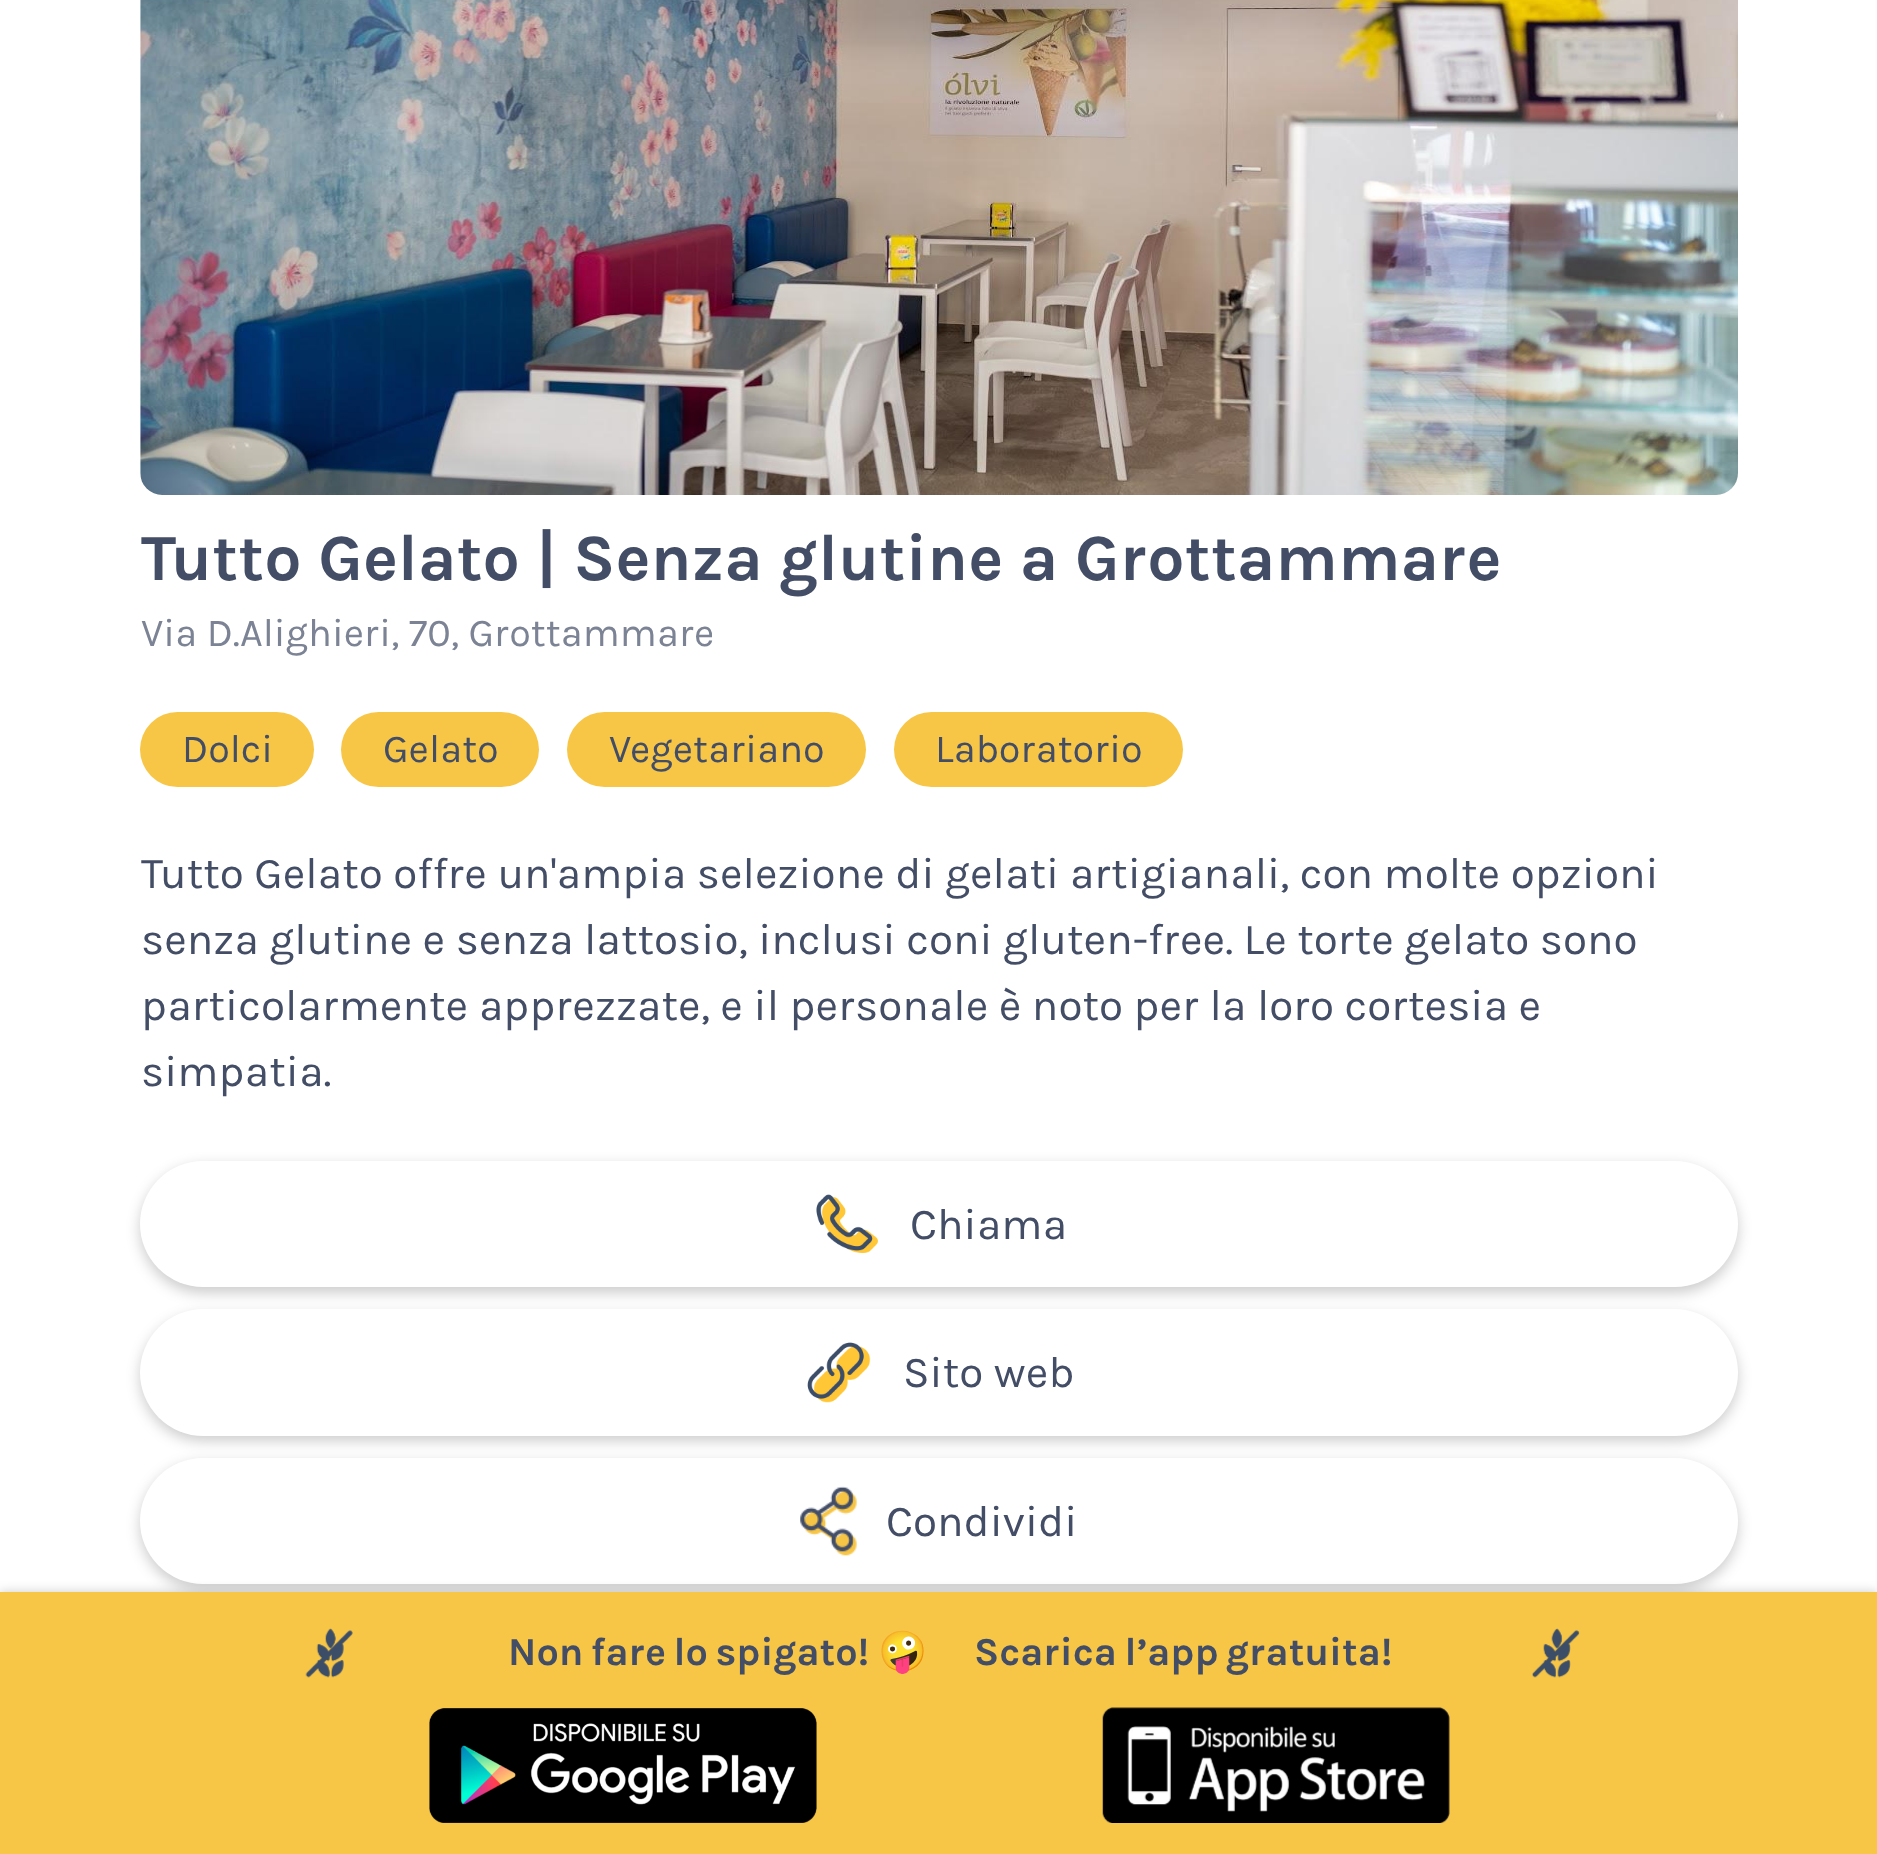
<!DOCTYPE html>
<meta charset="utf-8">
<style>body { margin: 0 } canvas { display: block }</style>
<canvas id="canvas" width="1877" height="1854"></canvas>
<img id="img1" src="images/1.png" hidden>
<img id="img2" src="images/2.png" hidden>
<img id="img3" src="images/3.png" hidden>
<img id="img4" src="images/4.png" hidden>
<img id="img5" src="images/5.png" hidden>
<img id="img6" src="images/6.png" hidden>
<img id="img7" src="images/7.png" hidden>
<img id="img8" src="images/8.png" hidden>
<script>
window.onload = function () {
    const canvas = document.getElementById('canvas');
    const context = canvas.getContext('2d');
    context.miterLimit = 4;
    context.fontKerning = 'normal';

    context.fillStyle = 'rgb(255, 255, 255)';
    context.fillRect(0, 0, 1877, 1854);
    context.drawImage(document.getElementById('img1'), 140, 0, 1598, 495);
    context.fillStyle = 'rgb(247, 198, 71)';
    context.beginPath();
    context.roundRect(140, 712, 174, 75, 37.5);
    context.fill();
    context.beginPath();
    context.roundRect(341, 712, 198, 75, 37.5);
    context.fill();
    context.beginPath();
    context.roundRect(567, 712, 299, 75, 37.5);
    context.fill();
    context.beginPath();
    context.roundRect(894, 712, 289, 75, 37.5);
    context.fill();
    context.fillStyle = 'rgba(0, 0, 0, 0.2)';
    context.filter = 'blur(7px)';
    context.beginPath();
    context.roundRect(140, 1166, 1598, 127, 63.5);
    context.fill();
    context.filter = 'none';
    context.fillStyle = 'rgb(255, 255, 255)';
    context.beginPath();
    context.roundRect(140, 1161, 1598, 126, 63);
    context.fill();
    context.drawImage(document.getElementById('img2'), 816, 1194, 62, 59);
    context.fillStyle = 'rgba(0, 0, 0, 0.2)';
    context.filter = 'blur(7px)';
    context.beginPath();
    context.roundRect(140, 1315, 1598, 126, 63);
    context.fill();
    context.filter = 'none';
    context.fillStyle = 'rgb(255, 255, 255)';
    context.beginPath();
    context.roundRect(140, 1309, 1598, 127, 63.5);
    context.fill();
    context.drawImage(document.getElementById('img3'), 807, 1342, 64, 61);
    context.fillStyle = 'rgba(0, 0, 0, 0.2)';
    context.filter = 'blur(7px)';
    context.beginPath();
    context.roundRect(140, 1463, 1598, 127, 63.5);
    context.fill();
    context.filter = 'none';
    context.fillStyle = 'rgb(255, 255, 255)';
    context.beginPath();
    context.roundRect(140, 1458, 1598, 126, 63);
    context.fill();
    context.drawImage(document.getElementById('img4'), 800, 1486, 57, 70);
    context.fillStyle = 'rgba(0, 0, 0, 0.2)';
    context.filter = 'blur(5.5px)';
    context.beginPath();
    context.rect(0, 1592, 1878, 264);
    context.fill();
    context.filter = 'none';
    context.fillStyle = 'rgb(247, 198, 71)';
    context.fillRect(0, 1592, 1877, 262);
    context.drawImage(document.getElementById('img5'), 305, 1628, 48, 50);
    context.drawImage(document.getElementById('img6'), 1532, 1628, 48, 50);
    context.drawImage(document.getElementById('img7'), 429, 1708, 388, 115);
    context.drawImage(document.getElementById('img8'), 1102, 1707, 348, 116);
    context.font = 'bold 66px Karla';
    context.fillStyle = 'rgb(67, 78, 102)';
    context.fillText('Tutto Gelato | Senza glutine a Grottammare', 141, 580);
    context.font = '39.6px Karla';
    context.fillStyle = 'rgb(123, 131, 148)';
    context.fillText('Via D.Alighieri, 70, Grottammare', 141, 646);
    context.fillStyle = 'rgb(67, 78, 102)';
    context.fillText('Dolci', 182, 762);
    context.fillText('Gelato', 383, 762);
    context.fillText('Vegetariano', 609, 762);
    context.fillText('Laboratorio', 935, 762);
    context.font = '44px Karla';
    context.fillText('Tutto Gelato offre un\'ampia selezione di gelati artigianali, con molte opzioni', 141, 888);
    context.fillText('senza glutine e senza lattosio, inclusi coni gluten-free. Le torte gelato sono', 141, 954);
    context.fillText('particolarmente apprezzate, e il personale è noto per la loro cortesia e', 141, 1020);
    context.fillText('simpatia.', 141, 1086);
    context.fillText('Chiama', 910, 1239);
    context.fillText('Sito web', 903, 1387);
    context.fillText('Condividi', 886, 1536);
    context.wordSpacing = '-2.5px';
    context.font = 'bold 39.6px Karla';
    context.fillText('Non fare lo spigato!', 508, 1665);
    context.wordSpacing = '0px';
    context.font = '39.6px Noto Color Emoji';
    context.fillText('🤪‍', 878, 1665);
    context.wordSpacing = '-2.5px';
    context.font = 'bold 39.6px Karla';
    context.fillText('Scarica l’app gratuita!', 974, 1665);
};
</script>
